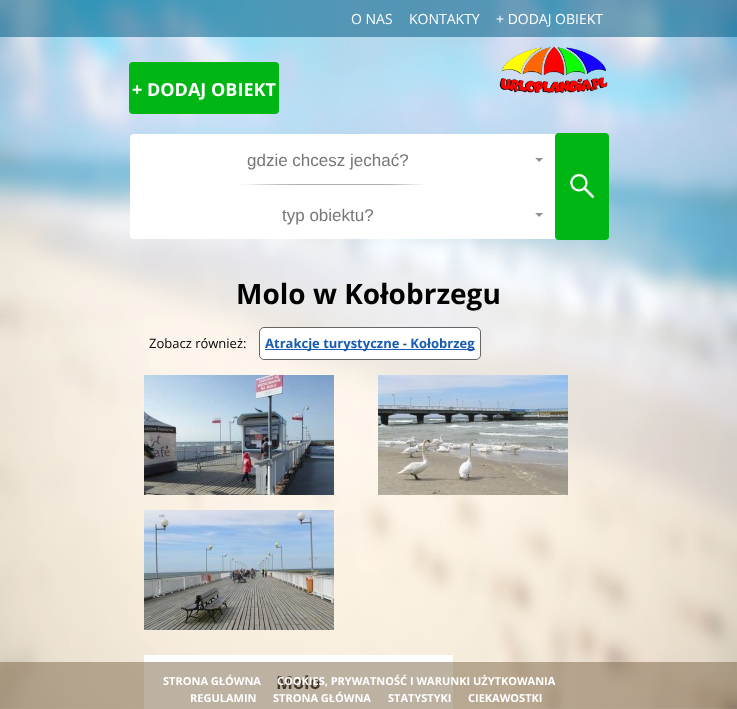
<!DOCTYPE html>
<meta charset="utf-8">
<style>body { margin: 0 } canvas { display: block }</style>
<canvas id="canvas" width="737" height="709"></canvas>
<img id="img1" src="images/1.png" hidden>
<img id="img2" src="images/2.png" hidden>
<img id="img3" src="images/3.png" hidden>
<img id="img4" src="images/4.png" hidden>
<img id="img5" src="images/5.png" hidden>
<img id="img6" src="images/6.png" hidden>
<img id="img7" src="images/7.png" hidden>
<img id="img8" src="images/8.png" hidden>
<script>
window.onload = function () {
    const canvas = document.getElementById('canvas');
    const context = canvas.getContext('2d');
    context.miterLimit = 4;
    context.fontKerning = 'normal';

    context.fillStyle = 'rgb(255, 255, 255)';
    context.fillRect(0, 0, 737, 709);
    context.drawImage(document.getElementById('img1'), 0, 0, 737, 709);
    context.fillStyle = 'rgba(0, 91, 130, 0.53)';
    context.fillRect(0, 0, 737, 37);
    context.fillStyle = 'rgb(0, 182, 20)';
    context.beginPath();
    context.roundRect(129, 62, 150, 52, 4);
    context.fill();
    context.drawImage(document.getElementById('img2'), 499, 46, 109, 47);
    context.fillStyle = 'rgb(255, 255, 255)';
    context.beginPath();
    context.roundRect(130, 134, 478, 105, 4);
    context.fill();
    context.drawImage(document.getElementById('img3'), 535, 158, 8, 4);
    context.fillStyle = 'rgb(0, 182, 20)';
    context.beginPath();
    context.roundRect(555, 133, 54, 107, 4);
    context.fill();
    context.drawImage(document.getElementById('img4'), 570, 173, 25, 26);
    context.drawImage(document.getElementById('img5'), 238, 184, 189, 1);
    context.drawImage(document.getElementById('img3'), 535, 213, 8, 4);
    context.fillStyle = 'rgb(255, 255, 255)';
    context.beginPath();
    context.roundRect(259.5, 327.5, 221, 32, 4.5);
    context.fill();
    context.strokeStyle = 'rgb(102, 102, 102)';
    context.stroke();
    context.fillStyle = 'rgb(23, 92, 176)';
    context.fillRect(265, 349, 210, 1);
    context.drawImage(document.getElementById('img6'), 144, 375, 190, 120);
    context.drawImage(document.getElementById('img7'), 378, 375, 190, 120);
    context.drawImage(document.getElementById('img8'), 144, 510, 190, 120);
    context.fillStyle = 'rgb(255, 255, 255)';
    context.fillRect(144, 655, 309, 54);
    context.font = '14px Open Sans';
    context.fillText('O NAS', 351, 24);
    context.fillText('KONTAKTY', 409, 24);
    context.fillText('+ DODAJ OBIEKT', 496, 24);
    context.font = 'bold 18px Open Sans';
    context.fillText('+ DODAJ OBIEKT', 132, 96);
    context.font = '17px Liberation Sans';
    context.fillStyle = 'rgb(119, 119, 119)';
    context.fillText('gdzie chcesz jechać?', 247, 166);
    context.fillText('typ obiektu?', 282, 221);
    context.font = 'bold 28px Open Sans';
    context.fillStyle = 'rgb(0, 0, 0)';
    context.fillText('Molo w Kołobrzegu', 236, 304);
    context.font = '13px Open Sans';
    context.fillText('Zobacz również:', 149, 348);
    context.font = 'bold 13px Noto Sans';
    context.fillStyle = 'rgb(23, 92, 176)';
    context.fillText('A', 265, 348);
    context.font = 'bold 13px Open Sans';
    context.fillText('trakcje turystyczne - Kołobrzeg', 274, 348);
    context.font = 'bold 18px Open Sans';
    context.fillStyle = 'rgb(0, 0, 0)';
    context.fillText('Molo', 276, 689);
    context.fillStyle = 'rgba(131, 107, 79, 0.53)';
    context.fillRect(0, 662, 737, 47);
    context.font = 'bold 11px Open Sans';
    context.fillStyle = 'rgb(255, 255, 255)';
    context.fillText('STRONA GŁÓWNA', 163, 685);
    context.fillText('COOKIES, PRYWATNOŚĆ I WARUNKI UŻYTKOWANIA', 277, 685);
    context.fillText('REGULAMIN', 190, 702);
    context.fillText('STRONA GŁÓWNA', 273, 702);
    context.fillText('STATYSTYKI', 388, 702);
    context.fillText('CIEKAWOSTKI', 468, 702);
};
</script>
